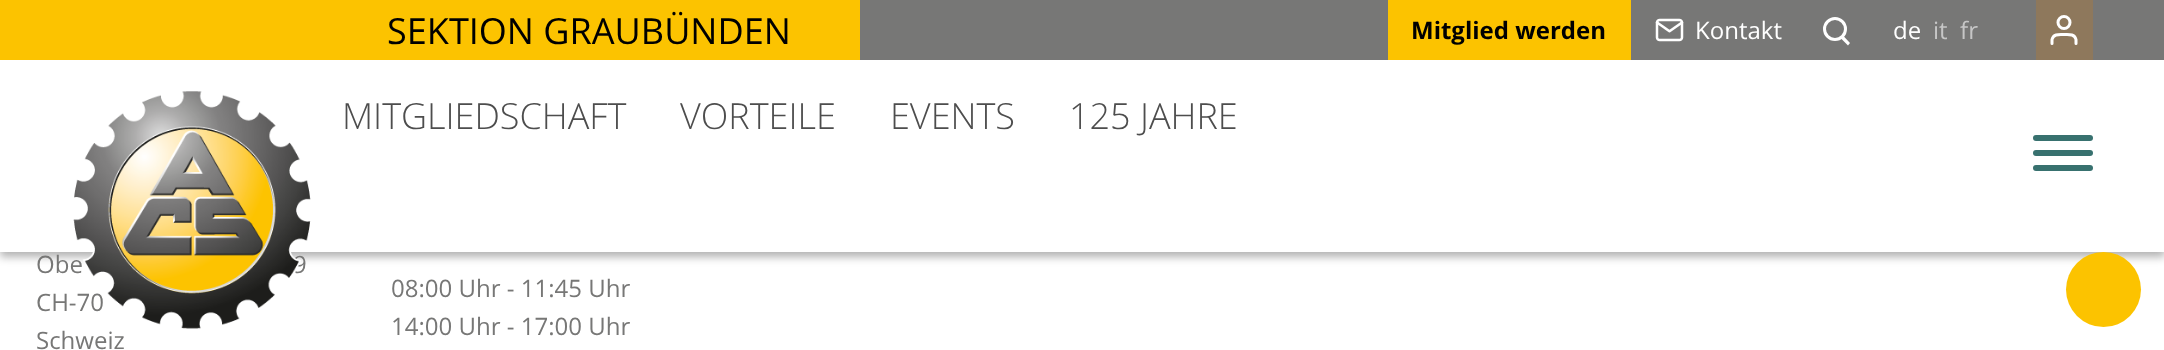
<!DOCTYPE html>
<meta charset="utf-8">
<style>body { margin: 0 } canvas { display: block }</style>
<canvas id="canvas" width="2164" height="350"></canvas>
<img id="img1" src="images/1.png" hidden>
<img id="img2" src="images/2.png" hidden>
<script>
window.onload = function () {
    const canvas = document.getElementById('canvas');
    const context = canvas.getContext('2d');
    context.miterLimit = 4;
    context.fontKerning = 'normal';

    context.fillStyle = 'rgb(255, 255, 255)';
    context.fillRect(0, 0, 2164, 350);
    context.fillStyle = 'rgba(0, 0, 0, 0.3)';
    context.filter = 'blur(4.5px)';
    context.beginPath();
    context.rect(0, 5, 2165, 252);
    context.fill();
    context.filter = 'none';
    context.fillStyle = 'rgb(255, 255, 255)';
    context.fillRect(0, 60, 2164, 192);
    context.fillStyle = 'rgb(119, 119, 118)';
    context.fillRect(860, 0, 1304, 60);
    context.fillStyle = 'rgb(252, 195, 0)';
    context.fillRect(0, 0, 860, 60);
    context.fillRect(1388, 0, 243, 60);
    context.drawImage(document.getElementById('img1'), 1655, 18, 29, 24);
    context.beginPath();
    context.arc(1835, 29, 10.5, 0, 2 * Math.PI);
    context.strokeStyle = 'rgb(255, 255, 255)';
    context.lineWidth = 3;
    context.stroke();
    context.fillStyle = 'rgb(255, 255, 255)';
    context.beginPath();
    context.moveTo(1843, 35.5);
    context.lineTo(1850, 43);
    context.lineTo(1848, 45.5);
    context.lineTo(1840.5, 38);
    context.closePath();
    context.fill();
    context.fillStyle = 'rgb(142, 120, 92)';
    context.fillRect(2036, 0, 57, 60);
    context.beginPath();
    context.moveTo(2076, 43.5);
    context.lineTo(2076, 39.5);
    context.bezierCurveTo(2074.5, 33.5, 2068.5, 34.5, 2064, 34.5);
    context.bezierCurveTo(2059.5, 34.5, 2053.5, 33.5, 2052, 39.5);
    context.lineTo(2052, 43.5);
    context.lineCap = 'round';
    context.lineJoin = 'round';
    context.stroke();
    context.beginPath();
    context.arc(2064, 22.5, 6, 0, 2 * Math.PI);
    context.stroke();
    context.fillStyle = 'rgb(56, 113, 111)';
    context.beginPath();
    context.roundRect(2033, 150, 60, 6, 3);
    context.fill();
    context.beginPath();
    context.roundRect(2033, 135, 60, 6, 3);
    context.fill();
    context.beginPath();
    context.roundRect(2033, 165, 60, 6, 3);
    context.fill();
    context.fillStyle = 'rgb(252, 195, 0)';
    context.beginPath();
    context.arc(2103.5, 289.5, 37.5, 0, 2 * Math.PI);
    context.fill();
    context.font = '36px Open Sans';
    context.fillStyle = 'rgb(0, 0, 0)';
    context.fillText('SEKTION GRAUBÜNDEN', 387, 44);
    context.font = 'bold 24px Open Sans';
    context.fillText('Mitglied werden', 1411, 39);
    context.font = '24px Open Sans';
    context.fillStyle = 'rgb(255, 255, 255)';
    context.fillText('Kontakt', 1695, 39);
    context.fillText('de', 1893, 39);
    context.fillStyle = 'rgb(198, 198, 198)';
    context.fillText('it', 1933, 39);
    context.fillText('fr', 1960, 39);
    context.font = '300 36px Open Sans';
    context.fillStyle = 'rgb(77, 77, 77)';
    context.fillText('MITGLIEDSCHAFT', 342, 129);
    context.fillText('VORTEILE', 680, 129);
    context.fillText('EVENTS', 890, 129);
    context.fillText('125 JAHRE', 1069, 129);
    context.font = '24px Open Sans';
    context.fillStyle = 'rgb(119, 119, 118)';
    context.fillText('Obe', 36, 273);
    context.fillText('9', 293, 273);
    context.fillText('CH-70', 36, 311);
    context.drawImage(document.getElementById('img2'), 73, 91, 238, 238);
    context.fillText('Schweiz', 36, 349);
    context.fillText('08:00 Uhr - 11:45 Uhr', 391, 297);
    context.fillText('14:00 Uhr - 17:00 Uhr', 391, 335);
};
</script>
